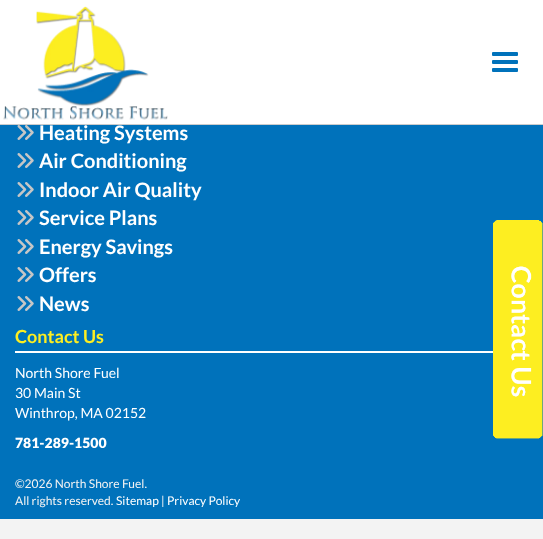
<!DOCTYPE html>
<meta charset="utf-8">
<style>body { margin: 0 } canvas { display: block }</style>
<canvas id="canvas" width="543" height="539"></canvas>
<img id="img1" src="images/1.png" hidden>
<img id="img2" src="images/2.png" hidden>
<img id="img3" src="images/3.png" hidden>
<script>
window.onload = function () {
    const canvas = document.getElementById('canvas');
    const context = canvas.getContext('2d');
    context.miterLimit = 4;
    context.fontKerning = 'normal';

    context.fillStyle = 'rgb(243, 243, 243)';
    context.fillRect(0, 0, 543, 539);
    context.fillStyle = 'rgb(255, 255, 255)';
    context.fillRect(0, 0, 543, 124);
    context.fillStyle = 'rgb(204, 204, 204)';
    context.fillRect(0, 124, 543, 1);
    context.drawImage(document.getElementById('img1'), 3, 6, 165, 114);
    context.fillStyle = 'rgb(0, 114, 187)';
    context.beginPath();
    context.roundRect(492, 52, 26, 4, 1);
    context.fill();
    context.beginPath();
    context.roundRect(492, 60, 26, 4, 1);
    context.fill();
    context.beginPath();
    context.roundRect(492, 68, 26, 4, 1);
    context.fill();
    context.fillRect(0, 125, 543, 394);
    context.drawImage(document.getElementById('img2'), 17, 125, 17, 15);
    context.drawImage(document.getElementById('img2'), 17, 153, 17, 15);
    context.drawImage(document.getElementById('img2'), 17, 182, 17, 15);
    context.drawImage(document.getElementById('img2'), 17, 210, 17, 15);
    context.drawImage(document.getElementById('img2'), 17, 239, 17, 15);
    context.drawImage(document.getElementById('img2'), 17, 267, 17, 15);
    context.drawImage(document.getElementById('img2'), 17, 296, 17, 15);
    context.fillStyle = 'rgb(255, 255, 255)';
    context.fillRect(15, 351, 478, 2);
    context.drawImage(document.getElementById('img3'), 493, 220, 50, 219);
    context.font = 'bold 20px Lato';
    context.fillText('Heating Systems', 39, 140);
    context.fillText('Air Conditioning', 39, 168);
    context.fillText('Indoor Air Quality', 39, 197);
    context.fillText('Service Plans', 39, 225);
    context.fillText('Energy Savings', 39, 254);
    context.fillText('Offers', 39, 282);
    context.fillText('News', 39, 311);
    context.font = 'bold 18px Lato';
    context.fillStyle = 'rgb(253, 238, 33)';
    context.fillText('Contact Us', 15, 343);
    context.font = '14px Lato';
    context.fillStyle = 'rgb(255, 255, 255)';
    context.fillText('North Shore Fuel', 15, 378);
    context.fillText('30 Main St', 15, 398);
    context.fillText('Winthrop, MA 02152', 15, 418);
    context.font = '900 14px Lato';
    context.fillText('781-289-1500', 15, 448);
    context.font = '12px Lato';
    context.fillStyle = 'rgb(243, 243, 243)';
    context.fillText('©2026 North Shore Fuel.', 15, 488);
    context.fillText('All rights reserved.', 15, 505);
    context.fillStyle = 'rgb(255, 255, 255)';
    context.fillText('Sitemap', 116, 505);
    context.fillStyle = 'rgb(243, 243, 243)';
    context.fillText('|', 161, 505);
    context.fillStyle = 'rgb(255, 255, 255)';
    context.fillText('Privacy Policy', 167, 505);
};
</script>
